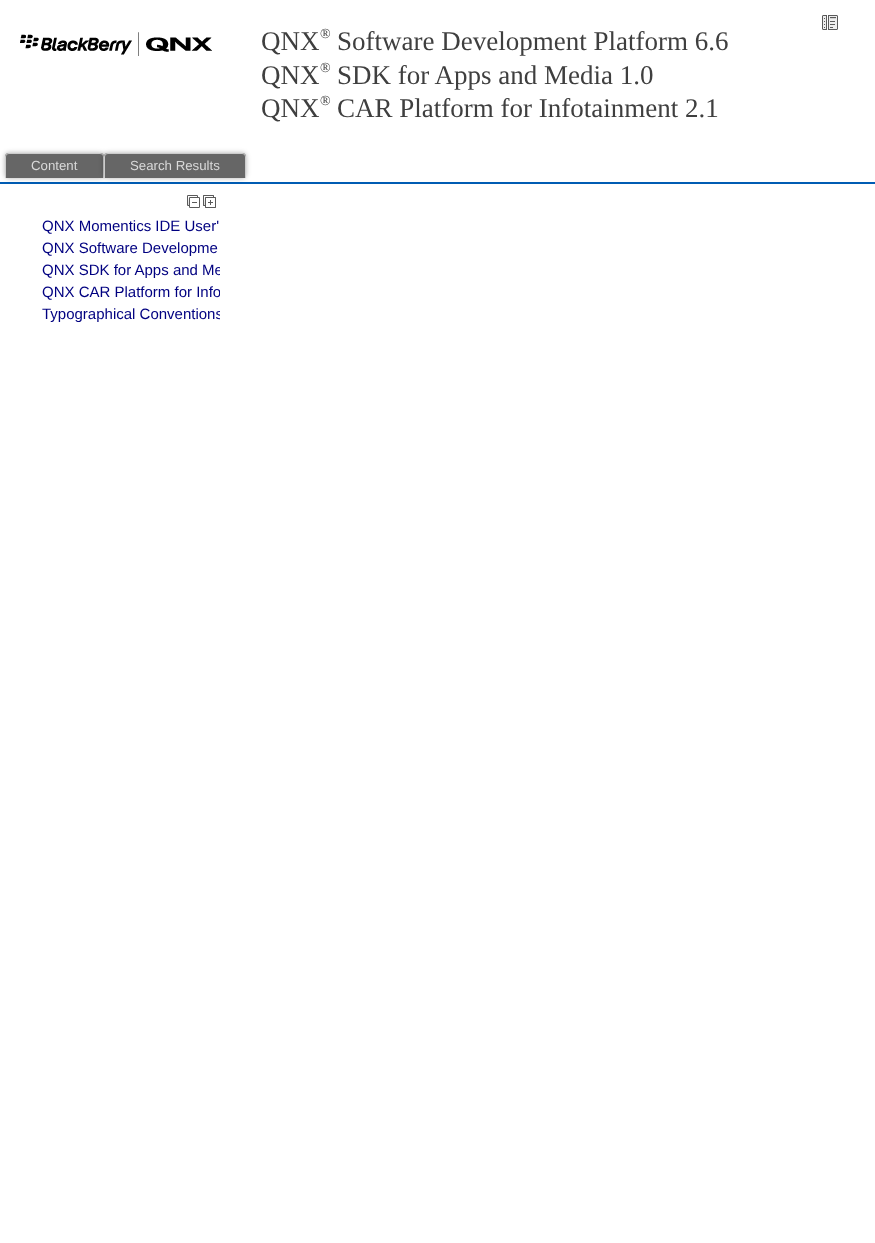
<!DOCTYPE html>
<meta charset="utf-8">
<style>body { margin: 0 } canvas { display: block }</style>
<canvas id="canvas" width="875" height="1243"></canvas>
<img id="img1" src="images/1.png" hidden>
<img id="img2" src="images/2.png" hidden>
<img id="img3" src="images/3.png" hidden>
<img id="img4" src="images/4.png" hidden>
<script>
window.onload = function () {
    const canvas = document.getElementById('canvas');
    const context = canvas.getContext('2d');
    context.miterLimit = 4;
    context.fontKerning = 'normal';

    context.fillStyle = 'rgb(255, 255, 255)';
    context.fillRect(0, 0, 875, 1243);
    context.drawImage(document.getElementById('img1'), 822, 15, 16, 15);
    context.drawImage(document.getElementById('img2'), 20, 32, 192, 24);
    context.fillStyle = 'rgb(0, 92, 179)';
    context.fillRect(0, 182, 875, 2);
    context.fillStyle = 'rgba(0, 0, 0, 0.31)';
    context.filter = 'blur(2.5px)';
    context.beginPath();
    context.roundRect(5, 153, 99, 25, 4);
    context.fill();
    context.filter = 'none';
    context.fillStyle = 'rgb(102, 102, 102)';
    context.beginPath();
    context.roundRect(5, 153, 99, 25, [4, 4, 0, 0]);
    context.fill();
    context.fillStyle = 'rgb(204, 204, 204)';
    context.beginPath();
    context.moveTo(9, 153);
    context.lineTo(100, 153);
    context.bezierCurveTo(102, 153, 104, 155, 104, 157);
    context.lineTo(104, 178);
    context.lineTo(5, 178);
    context.lineTo(5, 157);
    context.bezierCurveTo(5, 155, 7, 153, 9, 153);
    context.closePath();
    context.moveTo(9, 154);
    context.lineTo(100, 154);
    context.bezierCurveTo(102, 154, 103, 155, 103, 157);
    context.lineTo(103, 178);
    context.lineTo(6, 178);
    context.lineTo(6, 157);
    context.bezierCurveTo(6, 155, 7, 154, 9, 154);
    context.closePath();
    context.fill('evenodd');
    context.fillStyle = 'rgba(0, 0, 0, 0.31)';
    context.filter = 'blur(2.5px)';
    context.beginPath();
    context.roundRect(104, 153, 142, 25, 4);
    context.fill();
    context.filter = 'none';
    context.fillStyle = 'rgb(102, 102, 102)';
    context.beginPath();
    context.roundRect(104, 153, 142, 25, [4, 4, 0, 0]);
    context.fill();
    context.fillStyle = 'rgb(204, 204, 204)';
    context.beginPath();
    context.moveTo(108, 153);
    context.lineTo(242, 153);
    context.bezierCurveTo(244, 153, 246, 155, 246, 157);
    context.lineTo(246, 178);
    context.lineTo(104, 178);
    context.lineTo(104, 157);
    context.bezierCurveTo(104, 155, 106, 153, 108, 153);
    context.closePath();
    context.moveTo(108, 154);
    context.lineTo(242, 154);
    context.bezierCurveTo(244, 154, 245, 155, 245, 157);
    context.lineTo(245, 178);
    context.lineTo(105, 178);
    context.lineTo(105, 157);
    context.bezierCurveTo(105, 155, 106, 154, 108, 154);
    context.closePath();
    context.fill('evenodd');
    context.drawImage(document.getElementById('img3'), 187, 195, 13, 13);
    context.drawImage(document.getElementById('img4'), 203, 195, 13, 13);
    context.font = '27px Liberation Serif';
    context.fillStyle = 'rgb(63, 63, 63)';
    context.fillText('QNX', 261, 50);
    context.font = '14px Liberation Serif';
    context.fillText('®', 320, 38);
    context.font = '27px Liberation Serif';
    context.fillText('Software Development Platform 6.6', 337, 50);
    context.fillText('QNX', 261, 84);
    context.font = '14px Liberation Serif';
    context.fillText('®', 320, 72);
    context.font = '27px Liberation Serif';
    context.fillText('SDK for Apps and Media 1.0', 337, 84);
    context.fillText('QNX', 261, 117);
    context.font = '14px Liberation Serif';
    context.fillText('®', 320, 105);
    context.font = '27px Liberation Serif';
    context.fillText('CAR Platform for Infotainment 2.1', 337, 117);
    context.font = '13.25px Liberation Sans';
    context.fillStyle = 'rgb(218, 218, 218)';
    context.fillText('Content', 31, 170);
    context.fillText('Search Results', 130, 170);
    context.font = '15px Liberation Sans';
    context.fillStyle = 'rgb(0, 0, 128)';
    context.fillText('QNX Momentics IDE User\'', 42, 231);
    context.fillText('QNX Software Developme', 42, 253);
    context.save();
    context.beginPath();
    context.rect(1, 185, 219, 190);
    context.clip();
    context.fillText('QNX SDK for Apps and Me', 42, 275);
    context.fillText('QNX CAR Platform for Info', 42, 297);
    context.fillText('Typographical Conventions', 42, 319);
    context.restore();
};
</script>
